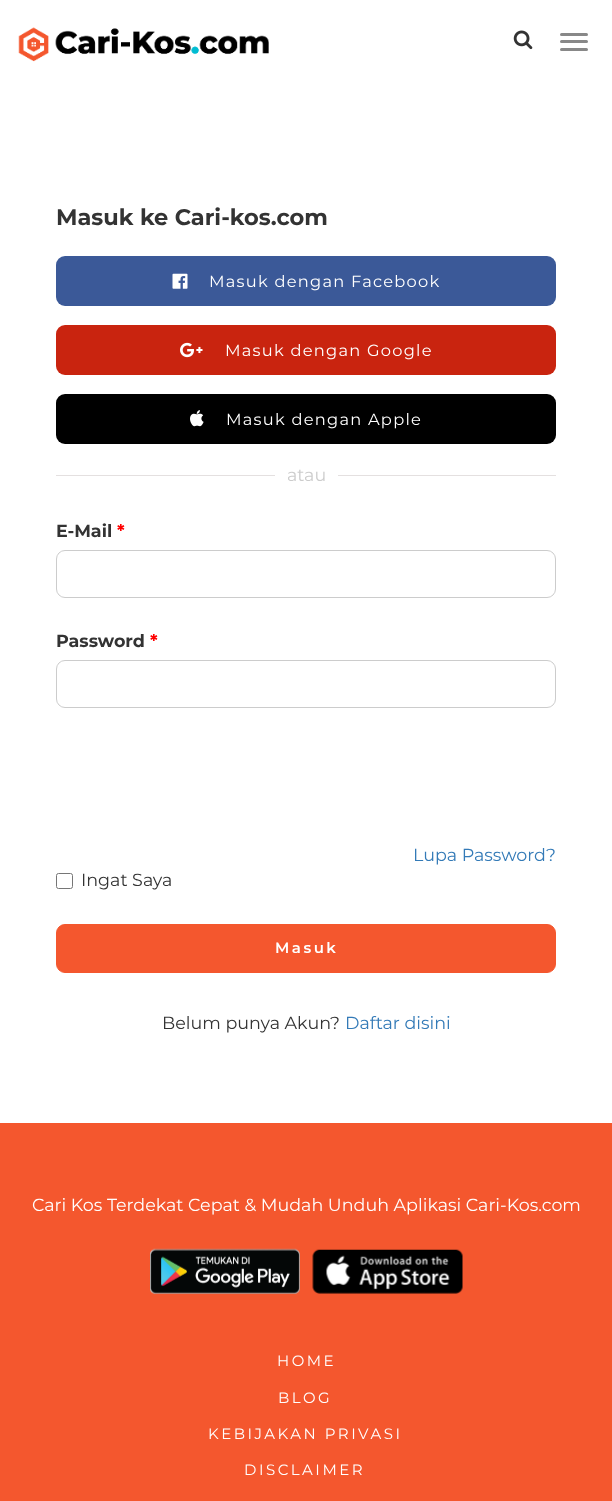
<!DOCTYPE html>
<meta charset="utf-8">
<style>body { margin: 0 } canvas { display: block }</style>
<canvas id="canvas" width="612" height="1501"></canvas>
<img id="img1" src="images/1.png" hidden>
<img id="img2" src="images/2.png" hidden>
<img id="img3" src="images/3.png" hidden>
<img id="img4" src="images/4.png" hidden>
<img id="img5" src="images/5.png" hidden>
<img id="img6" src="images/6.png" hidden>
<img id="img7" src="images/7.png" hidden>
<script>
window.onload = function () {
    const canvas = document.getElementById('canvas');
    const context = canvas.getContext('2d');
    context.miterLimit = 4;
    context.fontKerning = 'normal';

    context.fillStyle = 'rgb(255, 255, 255)';
    context.fillRect(0, 0, 612, 1501);
    context.drawImage(document.getElementById('img1'), 18, 27, 251, 35);
    context.drawImage(document.getElementById('img2'), 513, 30, 20, 20);
    context.fillStyle = 'rgb(136, 136, 136)';
    context.beginPath();
    context.roundRect(560, 33, 28, 3, 1.5);
    context.fill();
    context.beginPath();
    context.roundRect(560, 40, 28, 3, 1.5);
    context.fill();
    context.beginPath();
    context.roundRect(560, 48, 28, 3, 1.5);
    context.fill();
    context.fillStyle = 'rgb(59, 89, 152)';
    context.beginPath();
    context.roundRect(56, 256, 500, 50, 9);
    context.fill();
    context.drawImage(document.getElementById('img3'), 172, 273, 16, 16);
    context.fillStyle = 'rgb(201, 36, 15)';
    context.beginPath();
    context.roundRect(56, 325, 500, 50, 9);
    context.fill();
    context.drawImage(document.getElementById('img4'), 180, 342, 23, 16);
    context.fillStyle = 'rgb(0, 0, 0)';
    context.beginPath();
    context.roundRect(56, 394, 500, 50, 9);
    context.fill();
    context.drawImage(document.getElementById('img5'), 190, 410, 14, 17);
    context.fillStyle = 'rgb(228, 224, 224)';
    context.fillRect(56, 475, 500, 1);
    context.fillStyle = 'rgb(255, 255, 255)';
    context.fillRect(275, 475, 63, 1);
    context.beginPath();
    context.roundRect(56.5, 550.5, 499, 47, 8.5);
    context.strokeStyle = 'rgb(204, 204, 204)';
    context.stroke();
    context.beginPath();
    context.roundRect(56.5, 660.5, 499, 47, 8.5);
    context.stroke();
    context.beginPath();
    context.roundRect(56.5, 873.5, 16, 15, 2);
    context.strokeStyle = 'rgb(118, 118, 118)';
    context.stroke();
    context.fillStyle = 'rgb(244, 87, 46)';
    context.beginPath();
    context.roundRect(56.5, 924.5, 499, 48, 8.5);
    context.fill();
    context.strokeStyle = 'rgb(244, 87, 46)';
    context.stroke();
    context.fillRect(0, 1123, 612, 378);
    context.drawImage(document.getElementById('img6'), 150, 1248, 150, 46);
    context.drawImage(document.getElementById('img7'), 312, 1249, 151, 45);
    context.font = 'bold 22.5px Montserrat';
    context.fillStyle = 'rgb(51, 51, 51)';
    context.fillText('Masuk ke Cari-kos.com', 56, 225);
    context.letterSpacing = '1.25px';
    context.font = '16.25px Montserrat';
    context.fillStyle = 'rgb(255, 255, 255)';
    context.fillText('Masuk dengan Facebook', 209, 287);
    context.fillText('Masuk dengan Google', 225, 356);
    context.fillText('Masuk dengan Apple', 226, 425);
    context.letterSpacing = '0px';
    context.font = '17.5px Montserrat';
    context.fillStyle = 'rgb(204, 204, 204)';
    context.fillText('atau', 287, 481);
    context.font = 'bold 17.5px Montserrat';
    context.fillStyle = 'rgb(51, 51, 51)';
    context.fillText('E-Mail', 56, 537);
    context.fillStyle = 'rgb(255, 0, 0)';
    context.fillText('*', 117, 537);
    context.fillStyle = 'rgb(51, 51, 51)';
    context.fillText('Password', 56, 647);
    context.fillStyle = 'rgb(255, 0, 0)';
    context.fillText('*', 150, 647);
    context.font = '17.5px Montserrat';
    context.fillStyle = 'rgb(51, 122, 183)';
    context.fillText('Lupa Password?', 413, 861);
    context.fillStyle = 'rgb(51, 51, 51)';
    context.fillText('Ingat Saya', 81, 886);
    context.letterSpacing = '2.5px';
    context.font = '600 15px Montserrat';
    context.fillStyle = 'rgb(255, 255, 255)';
    context.fillText('Masuk', 275, 953);
    context.letterSpacing = '0px';
    context.font = '17.5px Montserrat';
    context.fillStyle = 'rgb(51, 51, 51)';
    context.fillText('Belum punya Akun?', 162, 1029);
    context.fillStyle = 'rgb(51, 122, 183)';
    context.fillText('Daftar disini', 345, 1029);
    context.fillStyle = 'rgb(255, 255, 255)';
    context.fillText('Cari Kos Terdekat Cepat & Mudah Unduh Aplikasi Cari-Kos.com', 32, 1211);
    context.letterSpacing = '2.5px';
    context.font = '15px Montserrat';
    context.fillText('HOME', 277, 1366);
    context.fillText('BLOG', 278, 1403);
    context.fillText('KEBIJAKAN PRIVASI', 208, 1439);
    context.fillText('DISCLAIMER', 244, 1475);
};
</script>
